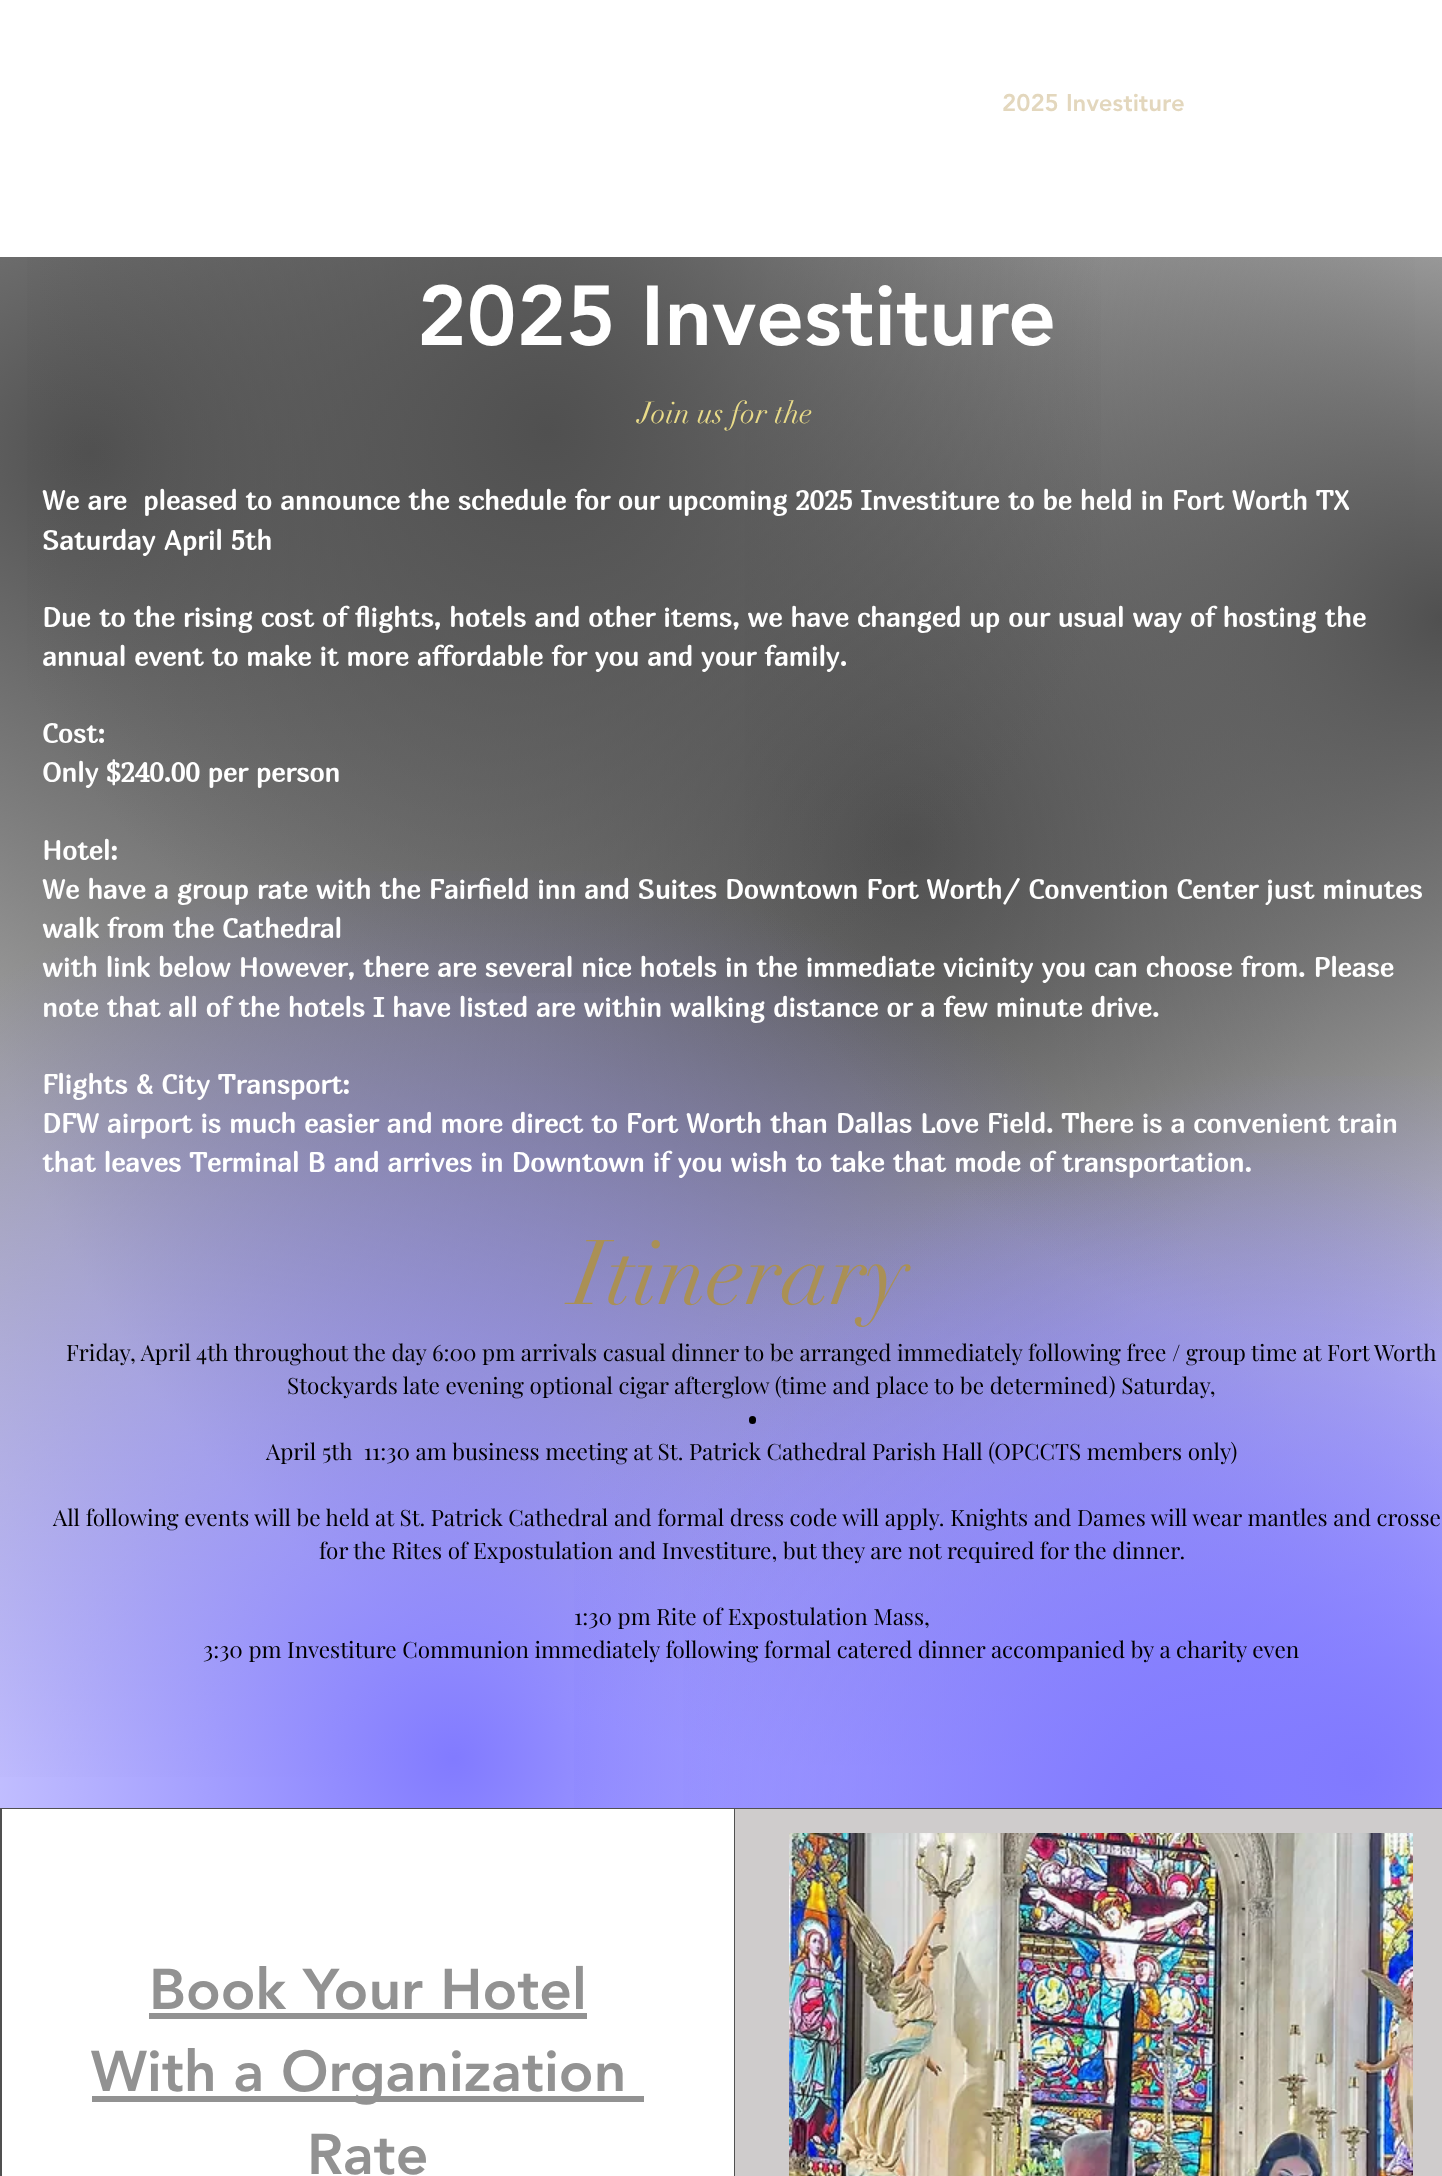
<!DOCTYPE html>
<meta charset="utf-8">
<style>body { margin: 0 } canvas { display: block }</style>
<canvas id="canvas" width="1442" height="2176"></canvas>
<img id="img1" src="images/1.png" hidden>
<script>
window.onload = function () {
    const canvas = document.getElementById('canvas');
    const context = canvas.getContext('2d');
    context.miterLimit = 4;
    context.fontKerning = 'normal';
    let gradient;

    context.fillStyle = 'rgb(255, 255, 255)';
    context.fillRect(0, 0, 1442, 2176);
    gradient = context.createRadialGradient(907, 843, 0, 907, 843, 1331);
    gradient.addColorStop(0, 'rgb(80, 80, 80)');
    gradient.addColorStop(0.7, 'rgb(255, 255, 255)');
    context.fillStyle = gradient;
    context.fillRect(0, 257, 1442, 1508);
    gradient = context.createRadialGradient(91, 453, 0, 91, 453, 1939);
    gradient.addColorStop(0, 'rgb(80, 80, 80)');
    gradient.addColorStop(0.7, 'rgba(80, 80, 80, 0)');
    context.fillStyle = gradient;
    context.fillRect(0, 257, 1415, 1520);
    gradient = context.createRadialGradient(454, 1759, 0, 454, 1759, 1814);
    gradient.addColorStop(0, 'rgba(128, 121, 255, 0.99)');
    gradient.addColorStop(0.5, 'rgba(128, 121, 255, 0)');
    context.fillStyle = gradient;
    context.fillRect(0, 871, 1343, 937);
    gradient = context.createRadialGradient(1442, 619, 0, 1442, 619, 1875);
    gradient.addColorStop(0, 'rgb(80, 80, 80)');
    gradient.addColorStop(0.4, 'rgba(80, 80, 80, 0)');
    context.fillStyle = gradient;
    context.fillRect(745, 257, 697, 1095);
    gradient = context.createRadialGradient(547, 431, 0, 547, 431, 1664);
    gradient.addColorStop(0, 'rgb(80, 80, 80)');
    gradient.addColorStop(0.35, 'rgba(80, 80, 80, 0)');
    context.fillStyle = gradient;
    context.fillRect(27, 257, 1074, 736);
    gradient = context.createRadialGradient(1360, 1774, 0, 1360, 1774, 2038);
    gradient.addColorStop(0, 'rgb(128, 121, 255)');
    gradient.addColorStop(0.35, 'rgba(128, 121, 255, 0)');
    context.fillStyle = gradient;
    context.fillRect(683, 1076, 759, 732);
    gradient = context.createRadialGradient(1176, 1817, 0, 1176, 1817, 1953);
    gradient.addColorStop(0, 'rgb(128, 121, 255)');
    gradient.addColorStop(0.35, 'rgba(128, 121, 255, 0)');
    context.fillStyle = gradient;
    context.fillRect(574, 1153, 868, 655);
    context.fillStyle = 'rgb(0, 0, 0)';
    context.beginPath();
    context.roundRect(749, 1416, 7, 8, 3.5);
    context.fill();
    context.fillStyle = 'rgb(80, 80, 80)';
    context.fillRect(0, 1808, 1442, 368);
    context.fillStyle = 'rgb(255, 255, 255)';
    context.fillRect(2, 1809, 732, 367);
    context.fillStyle = 'rgb(146, 146, 146)';
    context.fillRect(149, 2013, 438, 6);
    context.fillRect(92, 2096, 552, 6);
    context.fillStyle = 'rgb(207, 204, 204)';
    context.fillRect(735, 1809, 707, 367);
    context.drawImage(document.getElementById('img1'), 789, 1833, 624, 343);
    context.font = '900 24px "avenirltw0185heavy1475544"';
    context.fillStyle = 'rgb(227, 215, 189)';
    context.fillText('2025 Investiture', 1002, 111);
    context.font = '900 84px "avenirltw0185heavy1475544"';
    context.fillStyle = 'rgb(255, 255, 255)';
    context.fillText('2025 Investiture', 417, 345);
    context.font = '30px didot';
    context.fillStyle = 'rgb(233, 219, 137)';
    context.fillText('Join us for the', 638, 423);
    context.font = 'bold 27px Marmelad';
    context.fillStyle = 'rgb(255, 255, 255)';
    context.fillText('We are  pleased to announce the schedule for our upcoming 2025 Investiture to be held in Fort Worth TX', 42, 510);
    context.fillText('Saturday April 5th', 42, 550);
    context.fillText('Due to the rising cost of flights, hotels and other items, we have changed up our usual way of hosting the', 42, 627);
    context.fillText('annual event to make it more affordable for you and your family.', 42, 666);
    context.fillText('Cost:', 42, 743);
    context.fillText('Only $240.00 per person', 42, 782);
    context.fillText('Hotel:', 42, 860);
    context.fillText('We have a group rate with the Fairfield inn and Suites Downtown Fort Worth/ Convention Center just minutes', 42, 899);
    context.fillText('walk from the Cathedral', 42, 938);
    context.fillText('with link below However, there are several nice hotels in the immediate vicinity you can choose from. Please', 42, 977);
    context.fillText('note that all of the hotels I have listed are within walking distance or a few minute drive.', 42, 1017);
    context.fillText('Flights & City Transport:', 42, 1094);
    context.fillText('DFW airport is much easier and more direct to Fort Worth than Dallas Love Field. There is a convenient train', 42, 1133);
    context.fillText('that leaves Terminal B and arrives in Downtown if you wish to take that mode of transportation.', 42, 1172);
    context.font = '90px didot';
    context.fillStyle = 'rgb(170, 144, 85)';
    context.fillText('Itinerary', 572, 1304);
    context.font = '22.5px Playfair Display';
    context.fillStyle = 'rgb(0, 0, 0)';
    context.fillText('Friday, April 4th throughout the day 6:00 pm arrivals casual dinner to be arranged immediately following free / group time at Fort Worth', 66, 1361);
    context.fillText('Stockyards late evening optional cigar afterglow (time and place to be determined) Saturday,', 287, 1394);
    context.fillText('April 5th  11:30 am business meeting at St. Patrick Cathedral Parish Hall (OPCCTS members only)', 266, 1460);
    context.fillText('All following events will be held at St. Patrick Cathedral and formal dress code will apply. Knights and Dames will wear mantles and crosse', 53, 1526);
    context.fillText('for the Rites of Expostulation and Investiture, but they are not required for the dinner.', 319, 1559);
    context.fillText('1:30 pm Rite of Expostulation Mass,', 574, 1625);
    context.fillText('3:30 pm Investiture Communion immediately following formal catered dinner accompanied by a charity even', 203, 1658);
    context.font = '900 57px "avenirltw0185heavy1475544"';
    context.fillStyle = 'rgb(146, 146, 146)';
    context.fillText('Book Your Hotel', 149, 2009);
    context.fillText('With a Organization', 91, 2091);
    context.fillText('Rate', 307, 2174);
};
</script>
